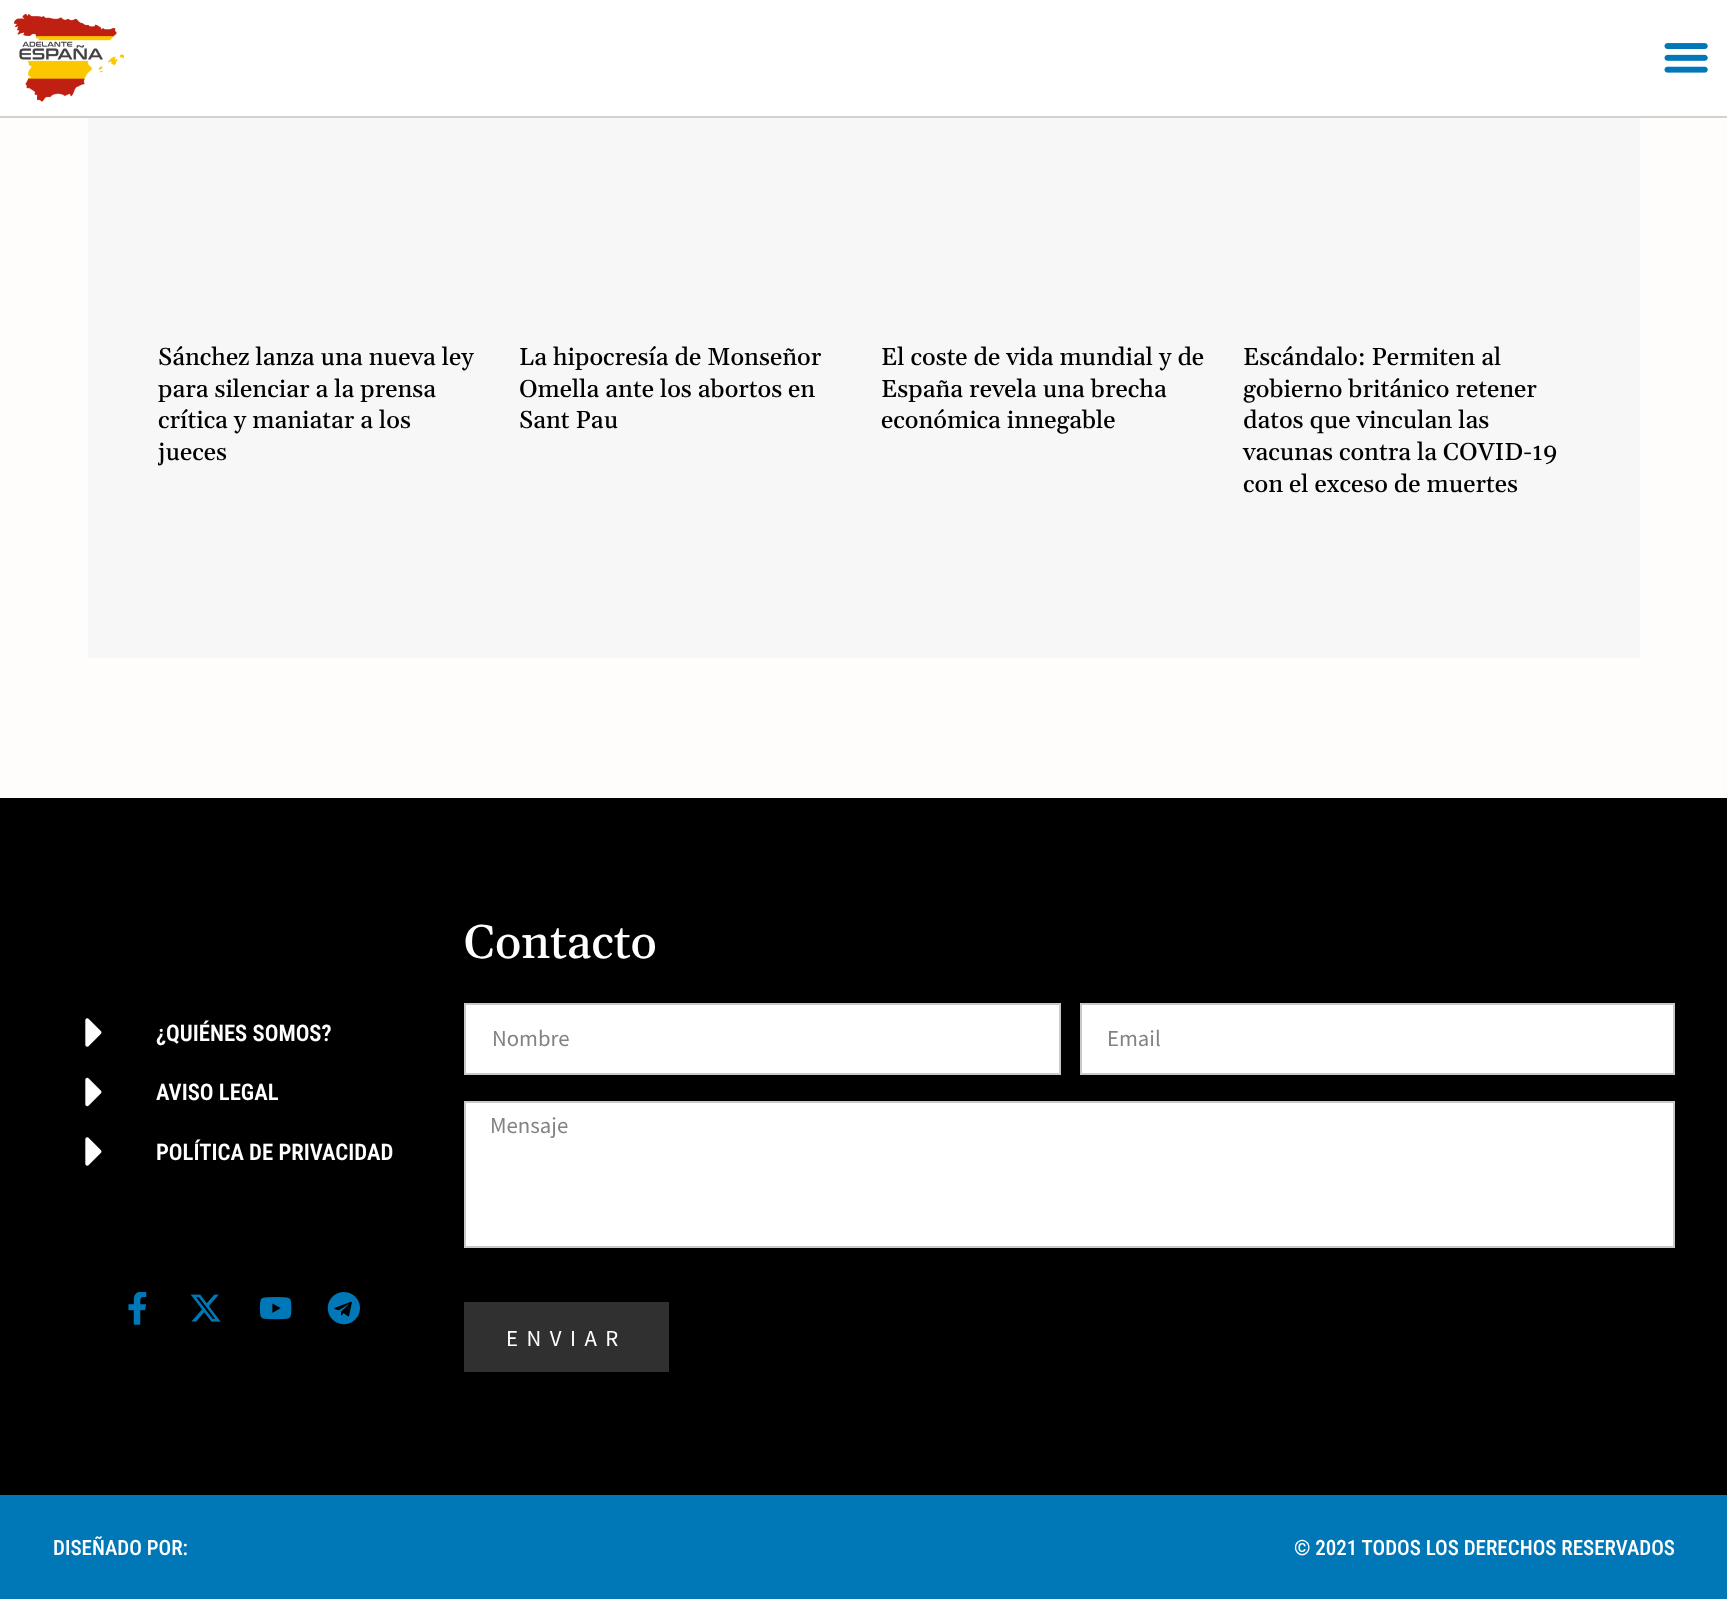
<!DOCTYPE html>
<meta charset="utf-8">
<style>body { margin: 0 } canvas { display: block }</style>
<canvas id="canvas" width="1727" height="1599"></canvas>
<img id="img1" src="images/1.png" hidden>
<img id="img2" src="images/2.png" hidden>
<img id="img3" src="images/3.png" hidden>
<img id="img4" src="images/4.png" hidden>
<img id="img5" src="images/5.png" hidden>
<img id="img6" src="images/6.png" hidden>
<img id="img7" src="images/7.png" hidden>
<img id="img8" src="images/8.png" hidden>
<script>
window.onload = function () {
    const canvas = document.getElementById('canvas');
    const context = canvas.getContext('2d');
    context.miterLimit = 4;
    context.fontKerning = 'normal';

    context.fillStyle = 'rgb(255, 252, 252)';
    context.fillRect(0, 0, 1727, 1599);
    context.fillStyle = 'rgb(255, 255, 255)';
    context.fillRect(0, 0, 1727, 116);
    context.fillStyle = 'rgb(209, 209, 209)';
    context.fillRect(0, 116, 1727, 2);
    context.drawImage(document.getElementById('img1'), 14, 14, 110, 88);
    context.drawImage(document.getElementById('img2'), 1664, 43, 44, 30);
    context.fillStyle = 'rgb(247, 247, 247)';
    context.fillRect(88, 118, 1552, 540);
    context.fillStyle = 'rgb(0, 0, 0)';
    context.fillRect(0, 798, 1727, 697);
    context.drawImage(document.getElementById('img3'), 85, 1018, 17, 29);
    context.drawImage(document.getElementById('img4'), 85, 1077, 17, 30);
    context.drawImage(document.getElementById('img3'), 85, 1137, 17, 29);
    context.drawImage(document.getElementById('img5'), 128, 1292, 19, 33);
    context.drawImage(document.getElementById('img6'), 190, 1294, 31, 28);
    context.drawImage(document.getElementById('img7'), 259, 1297, 33, 23);
    context.drawImage(document.getElementById('img8'), 327, 1292, 33, 33);
    context.fillStyle = 'rgb(255, 255, 255)';
    context.beginPath();
    context.rect(465, 1004, 595, 70);
    context.fill();
    context.strokeStyle = 'rgb(201, 201, 201)';
    context.lineWidth = 2;
    context.stroke();
    context.beginPath();
    context.rect(1081, 1004, 593, 70);
    context.fill();
    context.stroke();
    context.beginPath();
    context.rect(465, 1102, 1209, 145);
    context.fill();
    context.stroke();
    context.fillStyle = 'rgb(48, 48, 48)';
    context.fillRect(464, 1302, 205, 70);
    context.fillStyle = 'rgb(0, 119, 182)';
    context.fillRect(0, 1495, 1727, 104);
    context.font = '500 24.5px Gelasio';
    context.fillStyle = 'rgb(0, 0, 0)';
    context.fillText('Sánchez lanza una nueva ley', 158, 365);
    context.fillText('para silenciar a la prensa', 158, 397);
    context.fillText('crítica y maniatar a los', 158, 428);
    context.save();
    context.beginPath();
    context.rect(158, 158, 327, 343);
    context.clip();
    context.fillText('jueces', 158, 460);
    context.restore();
    context.fillText('La hipocresía de Monseñor', 519, 365);
    context.fillText('Omella ante los abortos en', 519, 397);
    context.fillText('Sant Pau', 519, 428);
    context.fillText('El coste de vida mundial y de', 881, 365);
    context.fillText('España revela una brecha', 881, 397);
    context.fillText('económica innegable', 881, 428);
    context.fillText('Escándalo: Permiten al', 1243, 365);
    context.fillText('gobierno británico retener', 1243, 397);
    context.fillText('datos que vinculan las', 1243, 428);
    context.fillText('vacunas contra la COVID-19', 1243, 460);
    context.fillText('con el exceso de muertes', 1243, 492);
    context.font = '600 22.75px Roboto Condensed';
    context.fillStyle = 'rgb(255, 255, 255)';
    context.fillText('¿QUIÉNES SOMOS?', 156, 1041);
    context.fillText('AVISO LEGAL', 156, 1100);
    context.fillText('POLÍTICA DE PRIVACIDAD', 156, 1160);
    context.font = '500 47.25px Gelasio';
    context.fillText('Contacto', 464, 958);
    context.font = '22.75px Source Sans Pro';
    context.fillStyle = 'rgb(131, 131, 131)';
    context.fillText('Nombre', 492, 1046);
    context.fillText('Email', 1107, 1046);
    context.fillText('Mensaje', 490, 1133);
    context.letterSpacing = '8.5px';
    context.fillStyle = 'rgb(255, 255, 255)';
    context.fillText('ENVIAR', 506, 1346);
    context.letterSpacing = '0px';
    context.font = '500 21px Roboto Condensed';
    context.fillText('DISEÑADO POR:', 53, 1555);
    context.fillText('© 2021 TODOS LOS DERECHOS RESERVADOS', 1294, 1555);
};
</script>
